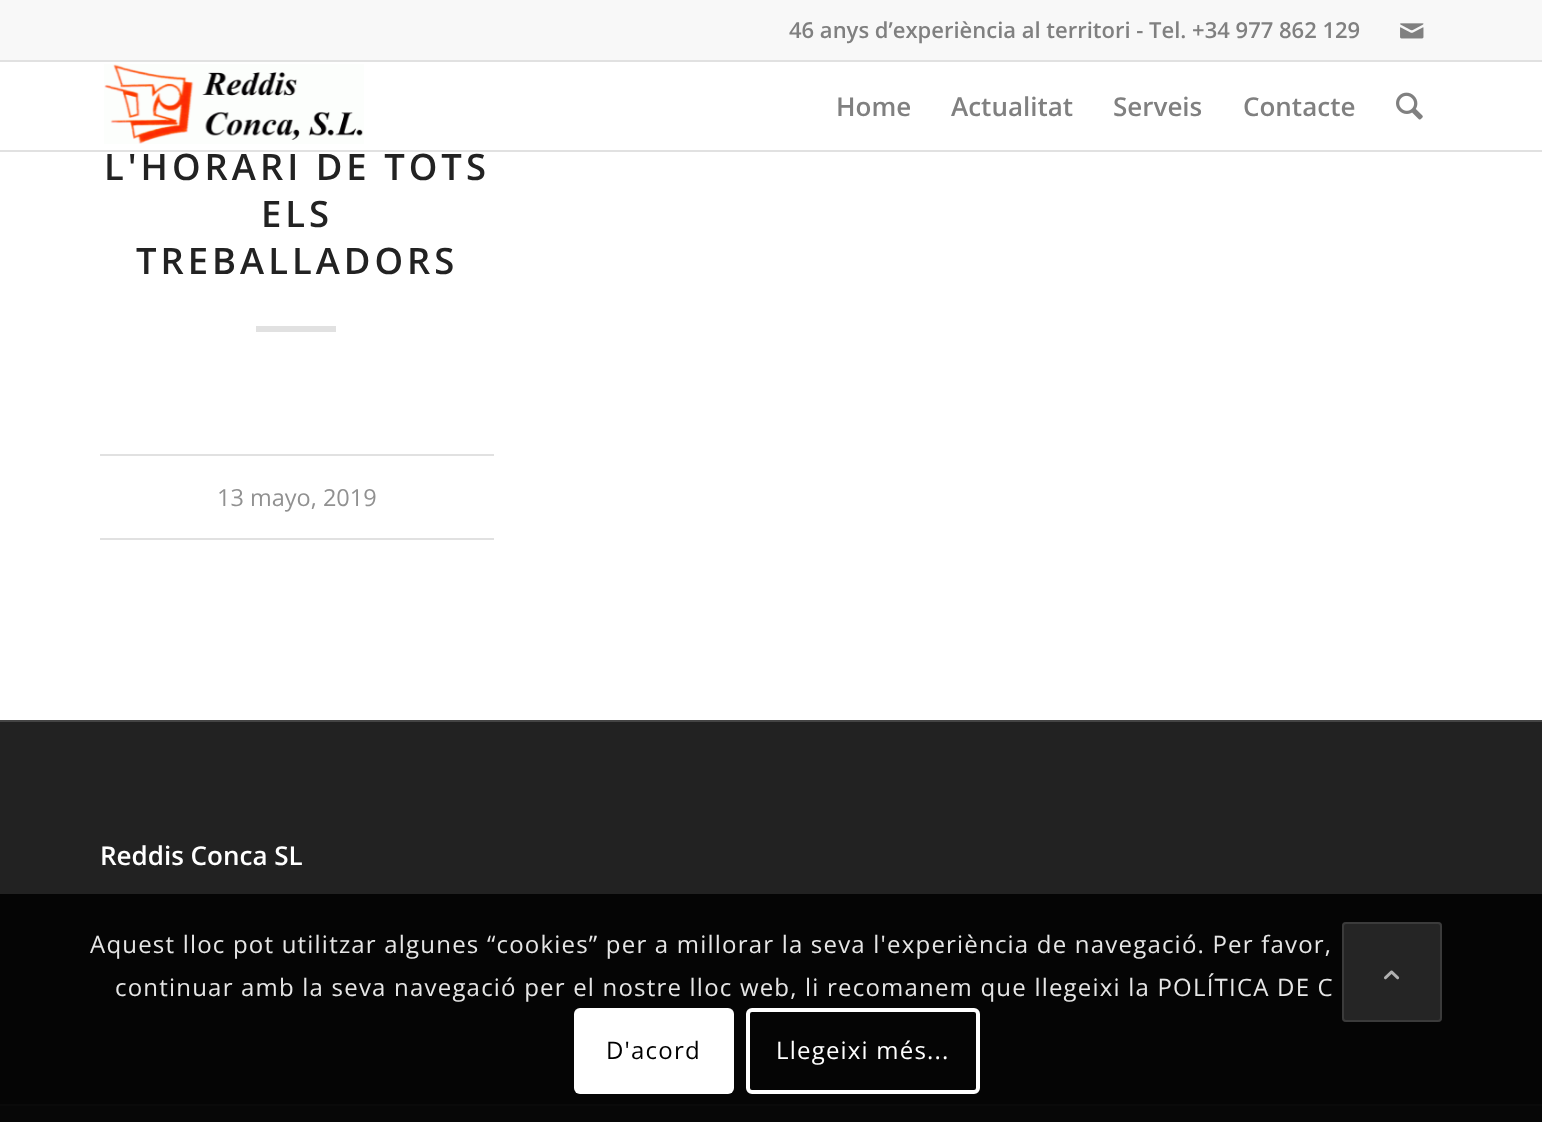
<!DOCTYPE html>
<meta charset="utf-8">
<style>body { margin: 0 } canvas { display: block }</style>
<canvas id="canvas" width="1542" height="1122"></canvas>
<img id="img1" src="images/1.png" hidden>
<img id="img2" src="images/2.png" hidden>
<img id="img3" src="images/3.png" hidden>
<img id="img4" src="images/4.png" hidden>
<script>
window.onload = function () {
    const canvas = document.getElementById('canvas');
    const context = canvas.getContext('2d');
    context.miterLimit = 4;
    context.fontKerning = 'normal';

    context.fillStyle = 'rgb(255, 255, 255)';
    context.fillRect(0, 0, 1542, 1122);
    context.fillStyle = 'rgb(248, 248, 248)';
    context.fillRect(0, 0, 1542, 60);
    context.fillStyle = 'rgb(225, 225, 225)';
    context.fillRect(0, 60, 1542, 2);
    context.drawImage(document.getElementById('img1'), 1400, 23, 24, 16);
    context.fillRect(0, 150, 1542, 2);
    context.drawImage(document.getElementById('img2'), 104, 64, 260, 80);
    context.drawImage(document.getElementById('img3'), 1396, 92, 27, 28);
    context.fillRect(256, 326, 80, 6);
    context.fillRect(100, 454, 394, 2);
    context.fillRect(100, 538, 394, 2);
    context.fillStyle = 'rgb(34, 34, 34)';
    context.fillRect(0, 722, 1542, 382);
    context.fillStyle = 'rgb(68, 68, 68)';
    context.fillRect(0, 720, 1542, 2);
    context.fillStyle = 'rgb(51, 51, 51)';
    context.fillRect(0, 1106, 1542, 16);
    context.fillStyle = 'rgb(68, 68, 68)';
    context.fillRect(0, 1104, 1542, 2);
    context.fillStyle = 'rgba(0, 0, 0, 0.85)';
    context.fillRect(0, 894, 1542, 228);
    context.fillStyle = 'rgb(255, 255, 255)';
    context.beginPath();
    context.roundRect(574, 1008, 160, 86, 6);
    context.fill();
    context.beginPath();
    context.roundRect(748, 1010, 230, 82, 4);
    context.strokeStyle = 'rgb(255, 255, 255)';
    context.lineWidth = 4;
    context.stroke();
    context.fillStyle = 'rgba(51, 51, 51, 0.7)';
    context.beginPath();
    context.roundRect(1342, 922, 100, 100, 4);
    context.fill();
    context.beginPath();
    context.roundRect(1343, 923, 98, 98, 3);
    context.strokeStyle = 'rgba(68, 68, 68, 0.7)';
    context.lineWidth = 2;
    context.stroke();
    context.drawImage(document.getElementById('img4'), 1384, 970, 16, 10);
    context.font = '600 22px Open Sans';
    context.fillStyle = 'rgb(128, 128, 128)';
    context.fillText('46 anys d’experiència al territori - Tel. +34 977 862 129', 789, 38);
    context.font = '600 26px Open Sans';
    context.fillText('Home', 836, 116);
    context.fillText('Actualitat', 951, 116);
    context.fillText('Serveis', 1113, 116);
    context.fillText('Contacte', 1243, 116);
    context.letterSpacing = '4px';
    context.font = '600 36.4px Open Sans';
    context.fillStyle = 'rgb(34, 34, 34)';
    context.fillText('L\'HORARI DE TOTS', 104, 180);
    context.fillText('ELS', 261, 227);
    context.fillText('TREBALLADORS', 136, 274);
    context.letterSpacing = '0px';
    context.font = '23.5px Open Sans';
    context.fillStyle = 'rgb(145, 145, 145)';
    context.fillText('13 mayo, 2019', 217, 506);
    context.font = '600 26px Open Sans';
    context.fillStyle = 'rgb(255, 255, 255)';
    context.fillText('Reddis Conca SL', 100, 865);
    context.letterSpacing = '1.2px';
    context.font = '24px Open Sans';
    context.fillStyle = 'rgb(230, 230, 230)';
    context.fillText('Aquest lloc pot utilitzar algunes “cookies” per a millorar la seva l\'experiència de navegació. Per favor,', 90, 953);
    context.fillText('continuar amb la seva navegació per el nostre lloc web, li recomanem que llegeixi la POLÍTICA DE C', 115, 996);
    context.fillStyle = 'rgb(0, 0, 0)';
    context.fillText('D\'acord', 606, 1059);
    context.fillStyle = 'rgb(255, 255, 255)';
    context.fillText('Llegeixi més...', 776, 1059);
};
</script>
